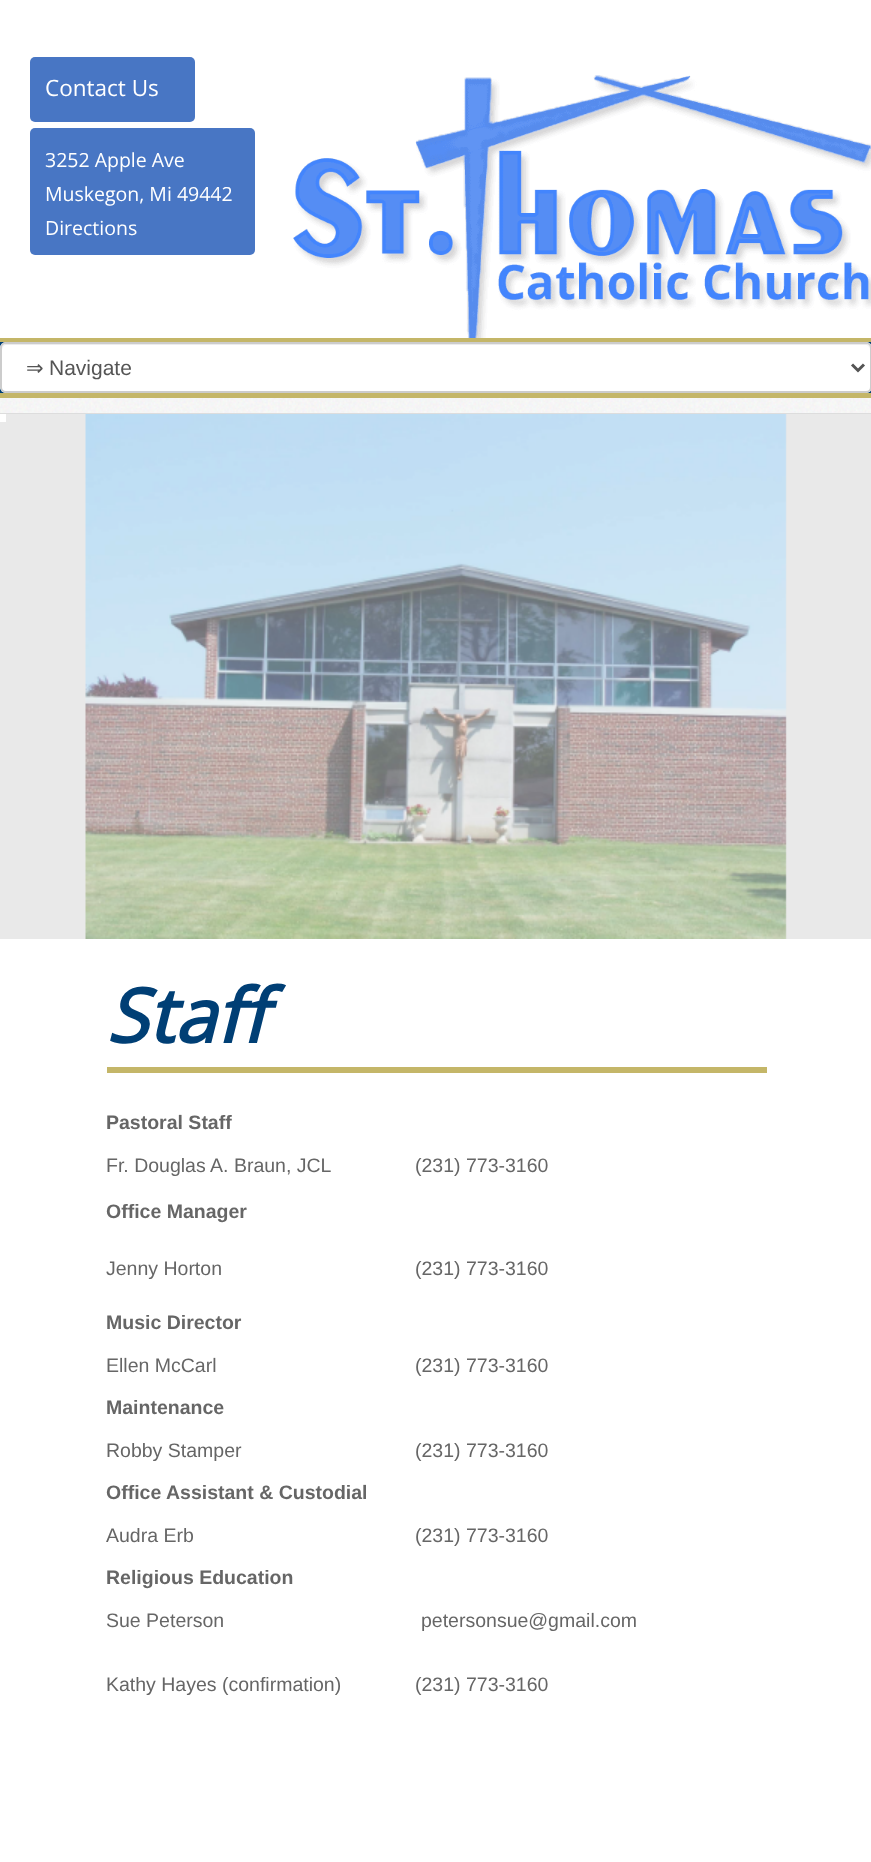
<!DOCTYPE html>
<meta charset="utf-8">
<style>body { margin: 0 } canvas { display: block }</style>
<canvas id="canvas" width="871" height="1862"></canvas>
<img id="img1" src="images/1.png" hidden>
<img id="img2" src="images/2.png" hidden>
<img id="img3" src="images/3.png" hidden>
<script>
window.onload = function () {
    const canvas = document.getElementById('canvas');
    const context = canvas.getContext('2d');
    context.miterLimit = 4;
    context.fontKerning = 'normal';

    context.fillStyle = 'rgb(255, 255, 255)';
    context.fillRect(0, 0, 871, 1862);
    context.drawImage(document.getElementById('img1'), 0, 398, 871, 15);
    context.fillStyle = 'rgb(221, 221, 221)';
    context.fillRect(0, 413, 871, 1);
    context.fillStyle = 'rgb(72, 118, 196)';
    context.beginPath();
    context.roundRect(30, 57, 165, 65, 5);
    context.fill();
    context.beginPath();
    context.roundRect(30, 128, 225, 127, 5);
    context.fill();
    context.drawImage(document.getElementById('img2'), 293, 75, 578, 263);
    context.fillStyle = 'rgb(196, 182, 104)';
    context.fillRect(0, 338, 871, 4);
    context.fillRect(0, 393, 871, 5);
    context.fillStyle = 'rgb(0, 63, 117)';
    context.fillRect(0, 342, 871, 51);
    context.fillStyle = 'rgb(255, 255, 255)';
    context.beginPath();
    context.roundRect(0, 342, 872, 51, 6);
    context.fill();
    context.fillStyle = 'rgb(236, 236, 236)';
    context.beginPath();
    context.moveTo(6, 345);
    context.lineTo(866, 345);
    context.bezierCurveTo(868, 345, 870, 347, 870, 350);
    context.lineTo(870, 349);
    context.bezierCurveTo(870, 346, 868, 344, 865, 344);
    context.lineTo(7, 344);
    context.bezierCurveTo(4, 344, 2, 346, 2, 349);
    context.lineTo(2, 350);
    context.bezierCurveTo(2, 347, 4, 345, 6, 345);
    context.closePath();
    context.fill();
    context.beginPath();
    context.roundRect(1, 343, 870, 49, 5);
    context.strokeStyle = 'rgb(204, 204, 204)';
    context.lineWidth = 2;
    context.stroke();
    context.beginPath();
    context.moveTo(852, 364.5);
    context.lineTo(858, 370.5);
    context.lineTo(864, 364.5);
    context.strokeStyle = 'rgb(85, 85, 85)';
    context.lineWidth = 3;
    context.stroke();
    context.fillStyle = 'rgb(233, 233, 233)';
    context.fillRect(0, 414, 871, 525);
    context.fillStyle = 'rgb(255, 255, 255)';
    context.fillRect(0, 414, 6, 8);
    context.drawImage(document.getElementById('img3'), 85, 414, 702, 525);
    context.fillStyle = 'rgb(196, 182, 104)';
    context.fillRect(107, 1067, 660, 6);
    context.font = '22.5px Open Sans';
    context.fillStyle = 'rgb(255, 255, 255)';
    context.fillText('Contact Us', 45, 96);
    context.font = '19.5px Open Sans';
    context.fillText('3252 Apple Ave', 45, 167);
    context.fillText('Muskegon, Mi 49442', 45, 201);
    context.fillText('Directions', 45, 235);
    context.font = '21px DejaVu Sans';
    context.fillStyle = 'rgb(85, 85, 85)';
    context.fillText('⇒', 26, 375);
    context.font = '21px Liberation Sans';
    context.fillText('Navigate', 49, 375);
    context.font = 'italic bold 75px Open Sans';
    context.fillStyle = 'rgb(0, 63, 117)';
    context.fillText('Staff', 106, 1043);
    context.font = 'bold 19.5px Liberation Sans';
    context.fillStyle = 'rgb(102, 102, 102)';
    context.fillText('Pastoral Staff', 106, 1129);
    context.font = '19.5px Liberation Sans';
    context.fillText('Fr. Douglas A. Braun, JCL', 106, 1172);
    context.fillText('(231) 773-3160', 415, 1172);
    context.font = 'bold 19.5px Liberation Sans';
    context.fillText('Office Manager', 106, 1218);
    context.font = '19.5px Liberation Sans';
    context.fillText('Jenny Horton', 106, 1275);
    context.fillText('(231) 773-3160', 415, 1275);
    context.font = 'bold 19.5px Liberation Sans';
    context.fillText('Music Director', 106, 1329);
    context.font = '19.5px Liberation Sans';
    context.fillText('Ellen McCarl', 106, 1372);
    context.fillText('(231) 773-3160', 415, 1372);
    context.font = 'bold 19.5px Liberation Sans';
    context.fillText('Maintenance', 106, 1414);
    context.font = '19.5px Liberation Sans';
    context.fillText('Robby Stamper', 106, 1457);
    context.fillText('(231) 773-3160', 415, 1457);
    context.font = 'bold 19.5px Liberation Sans';
    context.fillText('Office Assistant & Custodial', 106, 1499);
    context.font = '19.5px Liberation Sans';
    context.fillText('Audra Erb', 106, 1542);
    context.fillText('(231) 773-3160', 415, 1542);
    context.font = 'bold 19.5px Liberation Sans';
    context.fillText('Religious Education', 106, 1584);
    context.font = '19.5px Liberation Sans';
    context.fillText('Sue Peterson', 106, 1627);
    context.fillText('petersonsue@gmail.com', 421, 1627);
    context.fillText('Kathy Hayes (confirmation)', 106, 1691);
    context.fillText('(231) 773-3160', 415, 1691);
};
</script>
